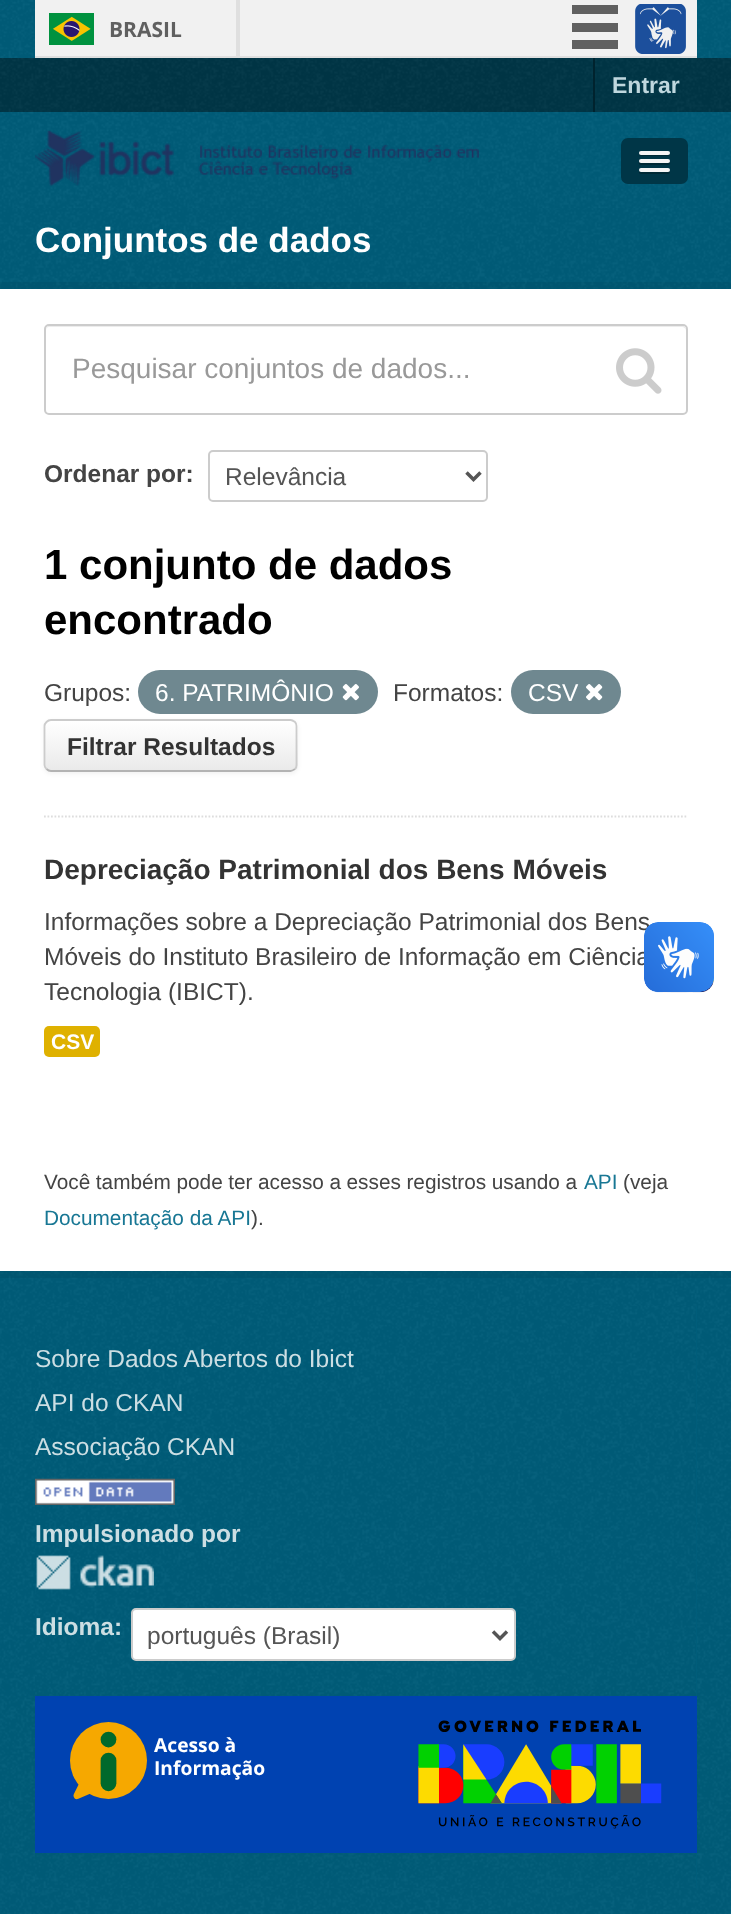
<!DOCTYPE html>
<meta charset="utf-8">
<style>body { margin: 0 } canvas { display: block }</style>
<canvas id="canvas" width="731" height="1914"></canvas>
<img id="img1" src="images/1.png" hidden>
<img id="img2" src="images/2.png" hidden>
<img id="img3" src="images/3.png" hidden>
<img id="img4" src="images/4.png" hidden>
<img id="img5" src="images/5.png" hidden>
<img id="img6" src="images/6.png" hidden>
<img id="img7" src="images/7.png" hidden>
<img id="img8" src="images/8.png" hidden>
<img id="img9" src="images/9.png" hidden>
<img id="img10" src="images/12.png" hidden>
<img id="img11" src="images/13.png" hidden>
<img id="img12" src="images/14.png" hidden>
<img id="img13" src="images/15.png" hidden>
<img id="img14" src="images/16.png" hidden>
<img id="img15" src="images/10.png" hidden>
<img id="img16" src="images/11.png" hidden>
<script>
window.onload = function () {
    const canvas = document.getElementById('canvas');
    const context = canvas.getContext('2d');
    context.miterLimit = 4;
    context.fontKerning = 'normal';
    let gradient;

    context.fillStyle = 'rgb(0, 93, 122)';
    context.fillRect(0, 0, 731, 1914);
    context.drawImage(document.getElementById('img1'), 0, 0, 731, 1914);
    context.fillStyle = 'rgb(241, 241, 241)';
    context.fillRect(35, 0, 662, 56);
    context.fillStyle = 'rgb(223, 223, 223)';
    context.fillRect(35, 56, 662, 2);
    context.fillRect(236, 0, 4, 56);
    context.drawImage(document.getElementById('img2'), 49, 13, 45, 32);
    context.fillStyle = 'rgb(96, 96, 96)';
    context.fillRect(572, 5, 46, 9);
    context.fillRect(572, 23, 46, 9);
    context.fillRect(572, 40, 46, 9);
    context.drawImage(document.getElementById('img3'), 635, 4, 51, 50);
    context.fillStyle = 'rgb(0, 54, 71)';
    context.fillRect(0, 58, 731, 54);
    context.drawImage(document.getElementById('img4'), 0, 58, 731, 54);
    context.fillStyle = 'rgb(0, 35, 46)';
    context.fillRect(593, 58, 2, 54);
    context.fillStyle = 'rgb(0, 93, 122)';
    context.fillRect(0, 112, 731, 96);
    context.drawImage(document.getElementById('img5'), 0, 112, 731, 96);
    context.drawImage(document.getElementById('img6'), 35, 130, 444, 56);
    context.fillStyle = 'rgb(0, 54, 71)';
    context.beginPath();
    context.roundRect(621, 138, 67, 46, 7);
    context.fill();
    context.fillStyle = 'rgb(0, 41, 53)';
    context.beginPath();
    context.moveTo(639, 153.5);
    context.bezierCurveTo(638, 157, 644.5, 156, 645.5, 156);
    context.lineTo(663.5, 156);
    context.bezierCurveTo(664.5, 156, 671, 157, 670, 153.5);
    context.lineTo(668.5, 154);
    context.lineTo(640.5, 154);
    context.closePath();
    context.fill();
    context.fillStyle = 'rgb(245, 245, 245)';
    context.beginPath();
    context.roundRect(639, 151, 31, 4, 2);
    context.fill();
    context.fillStyle = 'rgb(0, 41, 53)';
    context.beginPath();
    context.moveTo(639, 162);
    context.bezierCurveTo(637.5, 166, 644.5, 165, 645.5, 165);
    context.lineTo(663.5, 165);
    context.bezierCurveTo(664.5, 165, 671.5, 166, 670, 162);
    context.lineTo(668.5, 162.5);
    context.lineTo(640.5, 162.5);
    context.closePath();
    context.fill();
    context.fillStyle = 'rgb(245, 245, 245)';
    context.beginPath();
    context.roundRect(639, 159, 31, 4, 2);
    context.fill();
    context.fillStyle = 'rgb(0, 41, 53)';
    context.beginPath();
    context.moveTo(639.5, 171);
    context.bezierCurveTo(637, 175, 645, 174, 645.5, 174);
    context.lineTo(663.5, 174);
    context.bezierCurveTo(664, 174, 672, 175, 669.5, 171);
    context.lineTo(668.5, 171.5);
    context.lineTo(640.5, 171.5);
    context.closePath();
    context.fill();
    context.fillStyle = 'rgb(245, 245, 245)';
    context.beginPath();
    context.roundRect(639, 168, 31, 4, 2);
    context.fill();
    context.strokeStyle = 'rgba(0, 0, 0, 0.05)';
    context.lineWidth = 7;
    context.strokeRect(-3.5, 285.5, 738, 989);
    context.fillStyle = 'rgb(255, 255, 255)';
    context.fillRect(0, 289, 731, 982);
    context.beginPath();
    context.moveTo(44, 816.5);
    context.lineTo(688, 816.5);
    context.strokeStyle = 'rgb(221, 221, 221)';
    context.lineWidth = 1.8;
    context.setLineDash([1.75, 1.75]);
    context.stroke();
    context.fillStyle = 'rgb(236, 236, 236)';
    context.beginPath();
    context.moveTo(49, 327);
    context.lineTo(682, 327);
    context.bezierCurveTo(684, 327, 686, 329, 686, 331);
    context.bezierCurveTo(686, 328, 685, 326, 682, 326);
    context.lineTo(50, 326);
    context.bezierCurveTo(47, 326, 46, 328, 46, 331);
    context.bezierCurveTo(46, 329, 47, 327, 49, 327);
    context.closePath();
    context.fill();
    context.beginPath();
    context.roundRect(45, 325, 642, 89, 4);
    context.strokeStyle = 'rgb(204, 204, 204)';
    context.lineWidth = 2;
    context.setLineDash([]);
    context.stroke();
    context.drawImage(document.getElementById('img7'), 616, 348, 46, 46);
    context.beginPath();
    context.roundRect(209, 451, 278, 50, 4);
    context.stroke();
    context.beginPath();
    context.moveTo(466.5, 472.5);
    context.lineTo(473.5, 479.5);
    context.lineTo(480.5, 472.5);
    context.strokeStyle = 'rgb(85, 85, 85)';
    context.lineWidth = 3.5;
    context.stroke();
    context.fillStyle = 'rgb(111, 136, 144)';
    context.beginPath();
    context.roundRect(138, 670, 240, 44, 22);
    context.fill();
    context.drawImage(document.getElementById('img8'), 342, 684, 17, 17);
    context.beginPath();
    context.roundRect(511, 670, 110, 44, 22);
    context.fill();
    context.drawImage(document.getElementById('img9'), 586, 684, 17, 17);
    context.fillStyle = 'rgba(0, 0, 0, 0.05)';
    context.filter = 'blur(2px)';
    context.beginPath();
    context.roundRect(44, 721, 254, 53, 7);
    context.fill();
    context.filter = 'none';
    context.fillStyle = 'rgb(247, 247, 247)';
    context.beginPath();
    context.roundRect(44, 719, 254, 53, 7);
    context.fill();
    context.save();
    context.beginPath();
    context.roundRect(44, 719, 254, 53, 7);
    context.clip();
    gradient = context.createLinearGradient(171, 721, 171, 770);
    gradient.addColorStop(0, 'rgb(255, 255, 255)');
    gradient.addColorStop(1, 'rgb(234, 234, 234)');
    context.fillStyle = gradient;
    context.fillRect(44, 721, 254, 49);
    context.restore();
    context.beginPath();
    context.moveTo(295, 769);
    context.bezierCurveTo(293.5, 770, 292, 771, 290.5, 771);
    context.lineTo(51, 771);
    context.bezierCurveTo(49, 771, 47.5, 770, 46.5, 769);
    context.strokeStyle = 'rgb(179, 179, 179)';
    context.lineWidth = 1.8;
    context.stroke();
    context.beginPath();
    context.moveTo(46.5, 769);
    context.bezierCurveTo(45.5, 768, 44.5, 766.5, 44.5, 765);
    context.lineTo(44.5, 726);
    context.bezierCurveTo(44.5, 724.5, 45.5, 723, 46.5, 722);
    context.bezierCurveTo(47.5, 721, 49, 720, 51, 720);
    context.lineTo(290.5, 720);
    context.bezierCurveTo(292, 720, 293.5, 721, 295, 722);
    context.bezierCurveTo(296, 723, 296.5, 724.5, 296.5, 726);
    context.lineTo(296.5, 765);
    context.bezierCurveTo(296.5, 766.5, 296, 768, 295, 769);
    context.strokeStyle = 'rgb(204, 204, 204)';
    context.stroke();
    context.fillStyle = 'rgb(223, 177, 0)';
    context.beginPath();
    context.roundRect(44, 1026, 56, 31, 5);
    context.fill();
    context.fillStyle = 'rgb(0, 93, 122)';
    context.fillRect(35, 1306, 662, 582);
    context.drawImage(document.getElementById('img10'), 35, 1306, 661, 582);
    context.drawImage(document.getElementById('img11'), 35, 1478, 140, 27);
    context.drawImage(document.getElementById('img12'), 36, 1555, 118, 35);
    context.fillStyle = 'rgb(255, 255, 255)';
    context.beginPath();
    context.roundRect(132, 1609, 383, 51, 4);
    context.fill();
    context.lineWidth = 2;
    context.stroke();
    context.beginPath();
    context.moveTo(493, 1631.5);
    context.lineTo(500, 1638.5);
    context.lineTo(507, 1631.5);
    context.strokeStyle = 'rgb(85, 85, 85)';
    context.lineWidth = 3.5;
    context.stroke();
    context.fillStyle = 'rgb(0, 66, 177)';
    context.fillRect(35, 1696, 662, 157);
    context.drawImage(document.getElementById('img13'), 70, 1722, 195, 78);
    context.drawImage(document.getElementById('img14'), 418, 1720, 244, 109);
    context.font = 'bold 21px Open Sans';
    context.fillStyle = 'rgb(96, 96, 96)';
    context.fillText('BRASIL', 109, 37);
    context.font = 'bold 23px Liberation Sans';
    context.fillStyle = 'rgb(191, 215, 222)';
    context.fillText('Entrar', 612, 93);
    context.font = 'bold 35px Liberation Sans';
    context.fillStyle = 'rgb(255, 255, 255)';
    context.fillText('Conjuntos de dados', 35, 252);
    context.font = '28px Liberation Sans';
    context.fillStyle = 'rgb(153, 153, 153)';
    context.fillText('Pesquisar conjuntos de dados...', 72, 378);
    context.font = 'bold 24.5px Liberation Sans';
    context.fillStyle = 'rgb(68, 68, 68)';
    context.fillText('Ordenar por:', 44, 482);
    context.font = '24.5px Liberation Sans';
    context.fillStyle = 'rgb(85, 85, 85)';
    context.fillText('Relevância', 225, 485);
    context.font = 'bold 42px Liberation Sans';
    context.fillStyle = 'rgb(0, 0, 0)';
    context.fillText('1 conjunto de dados', 44, 579);
    context.fillText('encontrado', 44, 634);
    context.font = '24.5px Liberation Sans';
    context.fillStyle = 'rgb(68, 68, 68)';
    context.fillText('Grupos:', 44, 701);
    context.fillStyle = 'rgb(255, 255, 255)';
    context.fillText('6. PATRIMÔNIO', 155, 701);
    context.fillStyle = 'rgb(68, 68, 68)';
    context.fillText('Formatos:', 393, 701);
    context.fillStyle = 'rgb(255, 255, 255)';
    context.fillText('CSV', 528, 701);
    context.font = 'bold 24.5px Liberation Sans';
    context.fillStyle = 'rgb(51, 51, 51)';
    context.fillText('Filtrar Resultados', 67, 755);
    context.font = 'bold 28px Liberation Sans';
    context.fillText('Depreciação Patrimonial dos Bens Móveis', 44, 879);
    context.font = '24.5px Liberation Sans';
    context.fillStyle = 'rgb(68, 68, 68)';
    context.fillText('Informações sobre a Depreciação Patrimonial dos Bens', 44, 930);
    context.fillText('Móveis do Instituto Brasileiro de Informação em Ciência', 44, 965);
    context.fillText('Tecnologia (IBICT).', 44, 1000);
    context.font = 'bold 21px Liberation Sans';
    context.fillStyle = 'rgb(255, 255, 255)';
    context.fillText('CSV', 51, 1049);
    context.wordSpacing = '-0.25px';
    context.font = '20.8px Liberation Sans';
    context.fillStyle = 'rgb(68, 68, 68)';
    context.fillText('Você também pode ter acesso a esses registros usando a', 44, 1189);
    context.wordSpacing = '0px';
    context.fillStyle = 'rgb(24, 119, 148)';
    context.fillText('API', 584, 1189);
    context.fillStyle = 'rgb(68, 68, 68)';
    context.fillText('(veja', 623, 1189);
    context.fillStyle = 'rgb(24, 119, 148)';
    context.fillText('Documentação da API', 44, 1225);
    context.fillStyle = 'rgb(68, 68, 68)';
    context.fillText(').', 251, 1225);
    context.drawImage(document.getElementById('img15'), 644, 922, 70, 71);
    context.drawImage(document.getElementById('img16'), 644, 922, 70, 70);
    context.font = '24.5px Liberation Sans';
    context.fillStyle = 'rgb(204, 222, 227)';
    context.fillText('Sobre Dados Abertos do Ibict', 35, 1367);
    context.fillText('API do CKAN', 35, 1411);
    context.fillText('Associação CKAN', 35, 1455);
    context.font = 'bold 24.5px Liberation Sans';
    context.fillText('Impulsionado por', 35, 1542);
    context.fillText('Idioma:', 35, 1635);
    context.font = '24.5px Liberation Sans';
    context.fillStyle = 'rgb(85, 85, 85)';
    context.fillText('português (Brasil)', 147, 1644);
};
</script>
